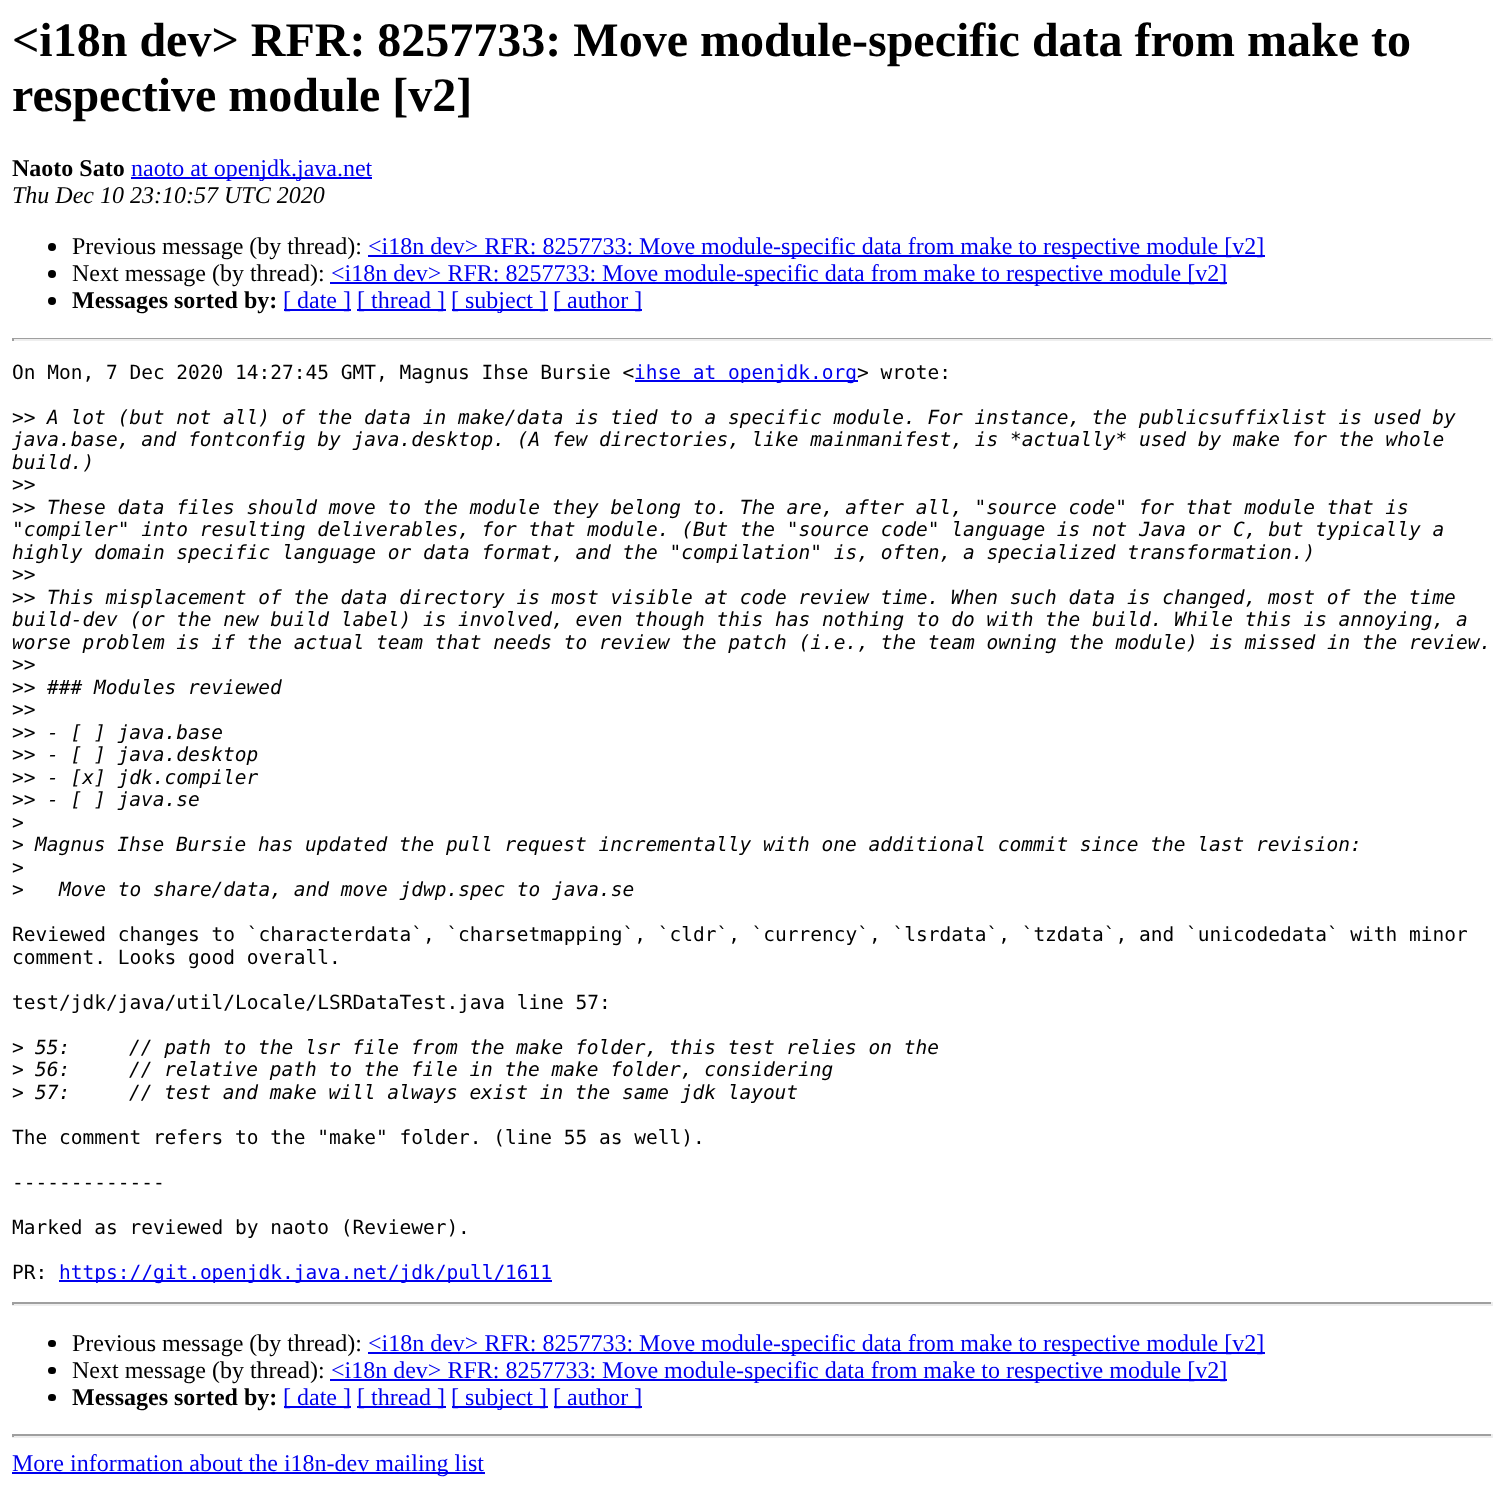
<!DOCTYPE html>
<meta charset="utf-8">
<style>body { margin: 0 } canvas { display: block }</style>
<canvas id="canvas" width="1504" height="1490"></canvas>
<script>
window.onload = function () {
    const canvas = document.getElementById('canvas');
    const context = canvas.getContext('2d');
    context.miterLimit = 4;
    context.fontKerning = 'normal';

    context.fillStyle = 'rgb(255, 255, 255)';
    context.fillRect(0, 0, 1504, 1490);
    context.fillStyle = 'rgb(0, 0, 238)';
    context.fillRect(131, 177, 241, 2);
    context.fillStyle = 'rgb(0, 0, 0)';
    context.beginPath();
    context.arc(52, 247, 4, 0, 2 * Math.PI);
    context.fill();
    context.fillStyle = 'rgb(0, 0, 238)';
    context.fillRect(368, 255, 897, 2);
    context.fillStyle = 'rgb(0, 0, 0)';
    context.beginPath();
    context.arc(52, 274, 4, 0, 2 * Math.PI);
    context.fill();
    context.fillStyle = 'rgb(0, 0, 238)';
    context.fillRect(330, 282, 897, 2);
    context.fillStyle = 'rgb(0, 0, 0)';
    context.beginPath();
    context.arc(52, 301, 4, 0, 2 * Math.PI);
    context.fill();
    context.fillStyle = 'rgb(0, 0, 238)';
    context.fillRect(284, 309, 67, 2);
    context.fillRect(357, 309, 89, 2);
    context.fillRect(452, 309, 96, 2);
    context.fillRect(554, 309, 88, 2);
    context.fillStyle = 'rgb(159, 159, 159)';
    context.fillRect(12, 338, 1481, 1);
    context.fillStyle = 'rgb(238, 238, 238)';
    context.fillRect(1491, 338, 2, 3);
    context.fillRect(12, 339, 1481, 2);
    context.fillStyle = 'rgb(159, 159, 159)';
    context.fillRect(12, 338, 2, 3);
    context.fillStyle = 'rgb(0, 0, 238)';
    context.fillRect(635, 380, 223, 2);
    context.fillRect(59, 1280, 493, 2);
    context.fillStyle = 'rgb(159, 159, 159)';
    context.fillRect(12, 1302, 1481, 2);
    context.fillStyle = 'rgb(238, 238, 238)';
    context.fillRect(1491, 1302, 2, 3);
    context.fillRect(12, 1304, 1481, 2);
    context.fillStyle = 'rgb(159, 159, 159)';
    context.fillRect(12, 1302, 2, 3);
    context.fillStyle = 'rgb(0, 0, 0)';
    context.beginPath();
    context.roundRect(48, 1340, 8, 7, 3.5);
    context.fill();
    context.fillStyle = 'rgb(0, 0, 238)';
    context.fillRect(368, 1352, 897, 2);
    context.fillStyle = 'rgb(0, 0, 0)';
    context.beginPath();
    context.roundRect(48, 1367, 8, 7, 3.5);
    context.fill();
    context.fillStyle = 'rgb(0, 0, 238)';
    context.fillRect(330, 1379, 897, 2);
    context.fillStyle = 'rgb(0, 0, 0)';
    context.beginPath();
    context.roundRect(48, 1394, 8, 7, 3.5);
    context.fill();
    context.fillStyle = 'rgb(0, 0, 238)';
    context.fillRect(284, 1406, 67, 2);
    context.fillRect(357, 1406, 89, 2);
    context.fillRect(452, 1406, 96, 2);
    context.fillRect(554, 1406, 88, 2);
    context.fillStyle = 'rgb(159, 159, 159)';
    context.fillRect(12, 1434, 1481, 2);
    context.fillStyle = 'rgb(238, 238, 238)';
    context.fillRect(1491, 1434, 2, 3);
    context.fillRect(12, 1436, 1481, 2);
    context.fillStyle = 'rgb(159, 159, 159)';
    context.fillRect(12, 1434, 2, 3);
    context.fillStyle = 'rgb(0, 0, 238)';
    context.fillRect(12, 1472, 473, 2);
    context.font = 'bold 48px Liberation Serif';
    context.fillStyle = 'rgb(0, 0, 0)';
    context.fillText('<i18n dev> RFR: 8257733: Move module-specific data from make to', 12, 56);
    context.fillText('respective module [v2]', 12, 111);
    context.font = 'bold 24px Liberation Serif';
    context.fillText('Naoto Sato', 12, 176);
    context.font = '24px Liberation Serif';
    context.fillStyle = 'rgb(0, 0, 238)';
    context.fillText('naoto at openjdk.java.net', 131, 176);
    context.font = 'italic 24px Liberation Serif';
    context.fillStyle = 'rgb(0, 0, 0)';
    context.fillText('Thu Dec 10 23:10:57 UTC 2020', 12, 203);
    context.font = '24px Liberation Serif';
    context.fillText('Previous message (by thread):', 72, 254);
    context.fillStyle = 'rgb(0, 0, 238)';
    context.fillText('<i18n dev> RFR: 8257733: Move module-specific data from make to respective module [v2]', 368, 254);
    context.fillStyle = 'rgb(0, 0, 0)';
    context.fillText('Next message (by thread):', 72, 281);
    context.fillStyle = 'rgb(0, 0, 238)';
    context.fillText('<i18n dev> RFR: 8257733: Move module-specific data from make to respective module [v2]', 331, 281);
    context.font = 'bold 24px Liberation Serif';
    context.fillStyle = 'rgb(0, 0, 0)';
    context.fillText('Messages sorted by:', 72, 308);
    context.font = '24px Liberation Serif';
    context.fillStyle = 'rgb(0, 0, 238)';
    context.fillText('[ date ]', 283, 308);
    context.fillText('[ thread ]', 357, 308);
    context.fillText('[ subject ]', 451, 308);
    context.fillText('[ author ]', 553, 308);
    context.font = '19.5px DejaVu Sans Mono';
    context.fillStyle = 'rgb(0, 0, 0)';
    context.fillText('On Mon, 7 Dec 2020 14:27:45 GMT, Magnus Ihse Bursie <', 12, 379);
    context.fillStyle = 'rgb(0, 0, 238)';
    context.fillText('ihse at openjdk.org', 634, 379);
    context.fillStyle = 'rgb(0, 0, 0)';
    context.fillText('> wrote:', 857, 379);
    context.fillText('>>', 12, 424);
    context.font = 'italic 19.5px DejaVu Sans Mono';
    context.fillText('A lot (but not all) of the data in make/data is tied to a specific module. For instance, the publicsuffixlist is used by', 47, 424);
    context.fillText('java.base, and fontconfig by java.desktop. (A few directories, like mainmanifest, is *actually* used by make for the whole', 12, 446);
    context.fillText('build.)', 12, 469);
    context.font = '19.5px DejaVu Sans Mono';
    context.fillText('>>', 12, 491);
    context.fillText('>>', 12, 514);
    context.font = 'italic 19.5px DejaVu Sans Mono';
    context.fillText('These data files should move to the module they belong to. The are, after all, "source code" for that module that is', 47, 514);
    context.fillText('"compiler" into resulting deliverables, for that module. (But the "source code" language is not Java or C, but typically a', 12, 536);
    context.fillText('highly domain specific language or data format, and the "compilation" is, often, a specialized transformation.)', 12, 559);
    context.font = '19.5px DejaVu Sans Mono';
    context.fillText('>>', 12, 581);
    context.fillText('>>', 12, 604);
    context.font = 'italic 19.5px DejaVu Sans Mono';
    context.fillText('This misplacement of the data directory is most visible at code review time. When such data is changed, most of the time', 47, 604);
    context.fillText('build-dev (or the new build label) is involved, even though this has nothing to do with the build. While this is annoying, a', 12, 626);
    context.fillText('worse problem is if the actual team that needs to review the patch (i.e., the team owning the module) is missed in the review.', 12, 649);
    context.font = '19.5px DejaVu Sans Mono';
    context.fillText('>>', 12, 671);
    context.fillText('>>', 12, 694);
    context.font = 'italic 19.5px DejaVu Sans Mono';
    context.fillText('### Modules reviewed', 47, 694);
    context.font = '19.5px DejaVu Sans Mono';
    context.fillText('>>', 12, 716);
    context.fillText('>>', 12, 739);
    context.font = 'italic 19.5px DejaVu Sans Mono';
    context.fillText('- [ ] java.base', 47, 739);
    context.font = '19.5px DejaVu Sans Mono';
    context.fillText('>>', 12, 761);
    context.font = 'italic 19.5px DejaVu Sans Mono';
    context.fillText('- [ ] java.desktop', 47, 761);
    context.font = '19.5px DejaVu Sans Mono';
    context.fillText('>>', 12, 784);
    context.font = 'italic 19.5px DejaVu Sans Mono';
    context.fillText('- [x] jdk.compiler', 47, 784);
    context.font = '19.5px DejaVu Sans Mono';
    context.fillText('>>', 12, 806);
    context.font = 'italic 19.5px DejaVu Sans Mono';
    context.fillText('- [ ] java.se', 47, 806);
    context.font = '19.5px DejaVu Sans Mono';
    context.fillText('>', 12, 829);
    context.fillText('>', 12, 851);
    context.font = 'italic 19.5px DejaVu Sans Mono';
    context.fillText('Magnus Ihse Bursie has updated the pull request incrementally with one additional commit since the last revision:', 35, 851);
    context.font = '19.5px DejaVu Sans Mono';
    context.fillText('>', 12, 874);
    context.fillText('>', 12, 896);
    context.font = 'italic 19.5px DejaVu Sans Mono';
    context.fillText('Move to share/data, and move jdwp.spec to java.se', 59, 896);
    context.font = '19.5px DejaVu Sans Mono';
    context.fillText('Reviewed changes to `characterdata`, `charsetmapping`, `cldr`, `currency`, `lsrdata`, `tzdata`, and `unicodedata` with minor', 12, 941);
    context.fillText('comment. Looks good overall.', 12, 964);
    context.fillText('test/jdk/java/util/Locale/LSRDataTest.java line 57:', 12, 1009);
    context.fillText('>', 12, 1054);
    context.font = 'italic 19.5px DejaVu Sans Mono';
    context.fillText('55:     // path to the lsr file from the make folder, this test relies on the', 35, 1054);
    context.font = '19.5px DejaVu Sans Mono';
    context.fillText('>', 12, 1076);
    context.font = 'italic 19.5px DejaVu Sans Mono';
    context.fillText('56:     // relative path to the file in the make folder, considering', 35, 1076);
    context.font = '19.5px DejaVu Sans Mono';
    context.fillText('>', 12, 1099);
    context.font = 'italic 19.5px DejaVu Sans Mono';
    context.fillText('57:     // test and make will always exist in the same jdk layout', 35, 1099);
    context.font = '19.5px DejaVu Sans Mono';
    context.fillText('The comment refers to the "make" folder. (line 55 as well).', 12, 1144);
    context.fillText('-------------', 12, 1189);
    context.fillText('Marked as reviewed by naoto (Reviewer).', 12, 1234);
    context.fillText('PR:', 12, 1279);
    context.fillStyle = 'rgb(0, 0, 238)';
    context.fillText('https://git.openjdk.java.net/jdk/pull/1611', 59, 1279);
    context.font = '24px Liberation Serif';
    context.fillStyle = 'rgb(0, 0, 0)';
    context.fillText('Previous message (by thread):', 72, 1351);
    context.fillStyle = 'rgb(0, 0, 238)';
    context.fillText('<i18n dev> RFR: 8257733: Move module-specific data from make to respective module [v2]', 368, 1351);
    context.fillStyle = 'rgb(0, 0, 0)';
    context.fillText('Next message (by thread):', 72, 1378);
    context.fillStyle = 'rgb(0, 0, 238)';
    context.fillText('<i18n dev> RFR: 8257733: Move module-specific data from make to respective module [v2]', 331, 1378);
    context.font = 'bold 24px Liberation Serif';
    context.fillStyle = 'rgb(0, 0, 0)';
    context.fillText('Messages sorted by:', 72, 1405);
    context.font = '24px Liberation Serif';
    context.fillStyle = 'rgb(0, 0, 238)';
    context.fillText('[ date ]', 283, 1405);
    context.fillText('[ thread ]', 357, 1405);
    context.fillText('[ subject ]', 451, 1405);
    context.fillText('[ author ]', 553, 1405);
    context.fillText('More information about the i18n-dev mailing list', 12, 1471);
};
</script>
